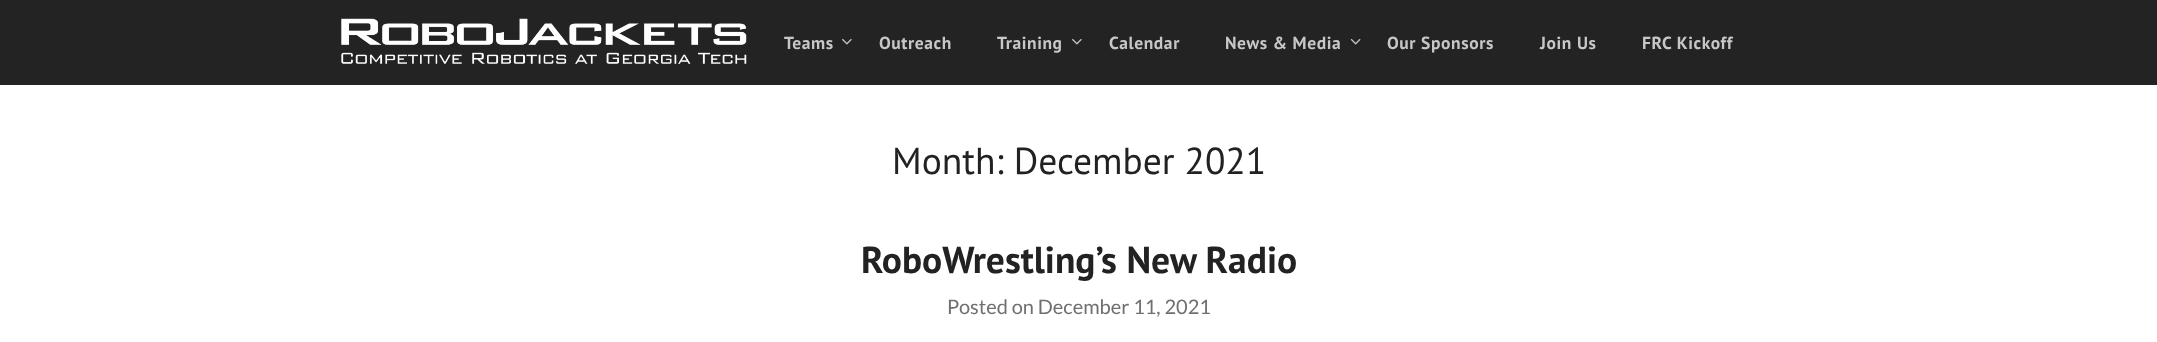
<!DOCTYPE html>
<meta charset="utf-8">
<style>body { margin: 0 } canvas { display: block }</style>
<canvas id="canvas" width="2157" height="342"></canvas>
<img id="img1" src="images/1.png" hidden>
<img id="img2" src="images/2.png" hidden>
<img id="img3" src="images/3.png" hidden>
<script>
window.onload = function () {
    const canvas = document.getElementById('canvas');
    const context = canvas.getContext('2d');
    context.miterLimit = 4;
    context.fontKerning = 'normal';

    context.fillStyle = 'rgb(255, 255, 255)';
    context.fillRect(0, 0, 2157, 342);
    context.fillStyle = 'rgb(35, 35, 35)';
    context.fillRect(0, 0, 2157, 85);
    context.drawImage(document.getElementById('img1'), 341, 18, 406, 46);
    context.drawImage(document.getElementById('img2'), 842, 38, 10, 7);
    context.drawImage(document.getElementById('img2'), 1072, 38, 10, 7);
    context.drawImage(document.getElementById('img3'), 1350, 38, 11, 7);
    context.letterSpacing = '0.6px';
    context.font = 'bold 17.5px PT Sans';
    context.fillStyle = 'rgb(199, 199, 199)';
    context.fillText('Teams', 784, 49);
    context.fillText('Outreach', 879, 49);
    context.fillText('Training', 997, 49);
    context.fillText('Calendar', 1109, 49);
    context.fillText('News & Media', 1225, 49);
    context.fillText('Our Sponsors', 1387, 49);
    context.fillText('Join Us', 1540, 49);
    context.fillText('FRC Kickoff', 1642, 49);
    context.letterSpacing = '0px';
    context.font = '37.5px PT Sans';
    context.fillStyle = 'rgb(34, 34, 34)';
    context.fillText('Month: December 2021', 892, 174);
    context.font = 'bold 37.5px PT Sans';
    context.fillText('RoboWrestling’s New Radio', 861, 273);
    context.font = '20px Lato';
    context.fillStyle = 'rgb(111, 111, 111)';
    context.fillText('Posted on December 11, 2021', 947, 314);
};
</script>
